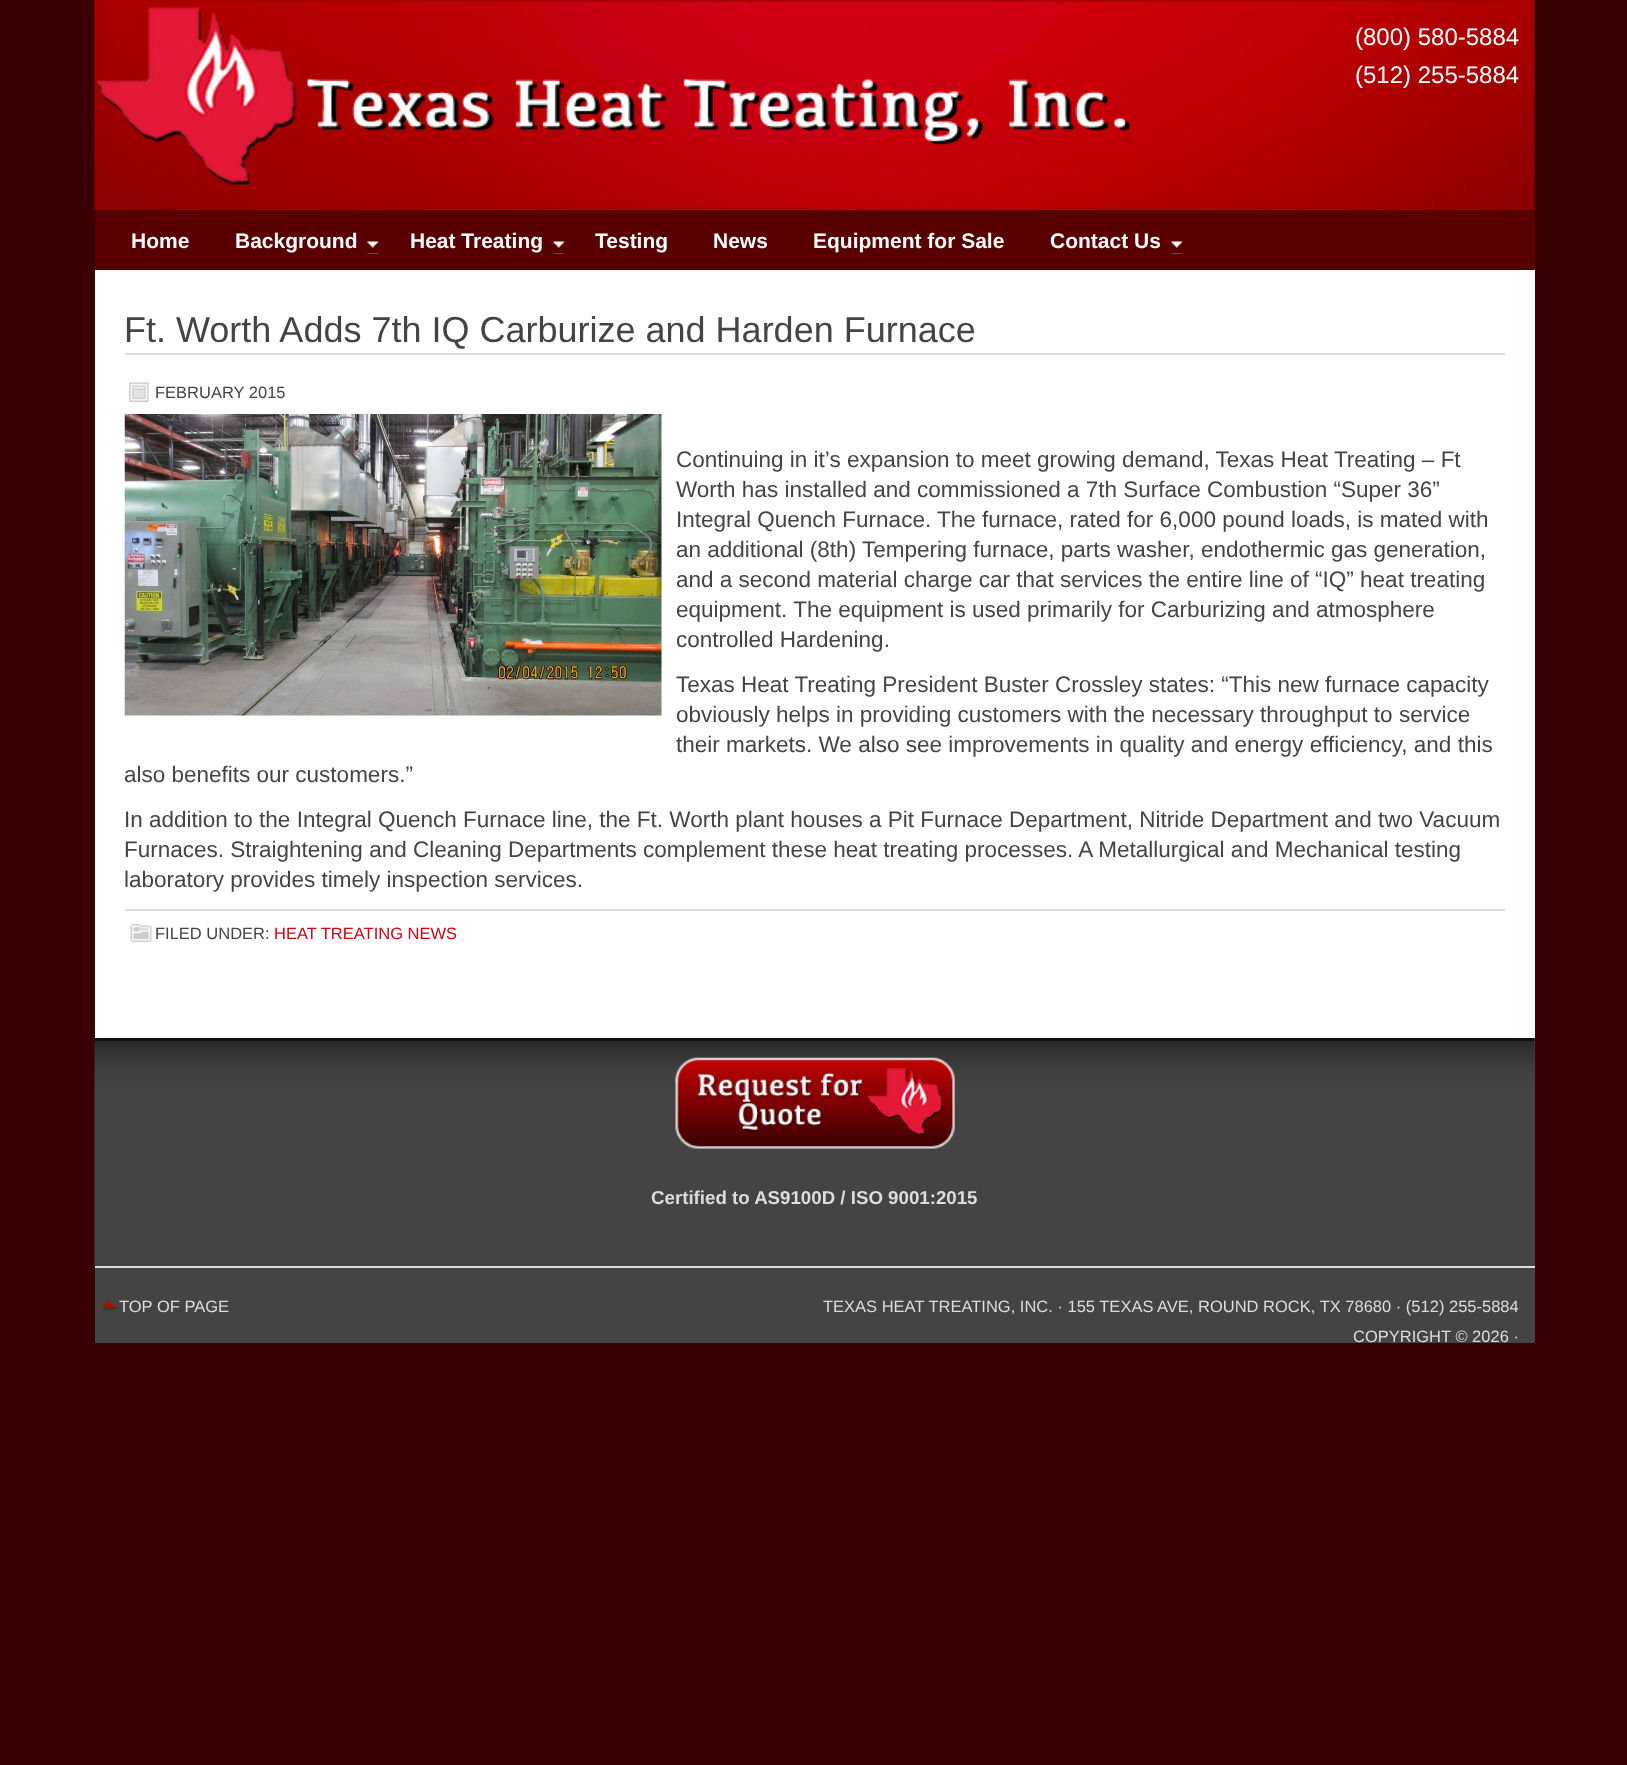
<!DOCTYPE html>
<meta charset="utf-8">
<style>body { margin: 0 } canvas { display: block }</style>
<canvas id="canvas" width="1627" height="1765"></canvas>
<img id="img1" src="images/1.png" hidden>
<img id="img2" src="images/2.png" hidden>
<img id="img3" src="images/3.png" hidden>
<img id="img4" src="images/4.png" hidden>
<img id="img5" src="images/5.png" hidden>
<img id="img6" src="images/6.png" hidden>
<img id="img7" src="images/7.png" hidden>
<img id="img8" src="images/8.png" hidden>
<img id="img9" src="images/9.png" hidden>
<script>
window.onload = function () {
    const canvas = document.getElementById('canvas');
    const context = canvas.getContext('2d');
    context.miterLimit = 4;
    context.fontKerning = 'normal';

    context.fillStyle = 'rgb(56, 0, 2)';
    context.fillRect(0, 0, 1627, 1765);
    context.drawImage(document.getElementById('img1'), 94, 0, 1441, 210);
    context.drawImage(document.getElementById('img2'), 97, 7, 1033, 178);
    context.fillStyle = 'rgb(88, 0, 0)';
    context.fillRect(95, 210, 1440, 60);
    context.drawImage(document.getElementById('img3'), 367, 241, 12, 13);
    context.drawImage(document.getElementById('img3'), 553, 241, 12, 13);
    context.drawImage(document.getElementById('img3'), 1171, 241, 12, 13);
    context.fillStyle = 'rgb(255, 255, 255)';
    context.fillRect(95, 270, 1440, 768);
    context.fillStyle = 'rgb(221, 221, 221)';
    context.fillRect(125, 353, 1380, 2);
    context.drawImage(document.getElementById('img4'), 129, 382, 20, 20);
    context.drawImage(document.getElementById('img5'), 124, 414, 538, 302);
    context.fillRect(125, 909, 1380, 2);
    context.drawImage(document.getElementById('img6'), 130, 924, 22, 19);
    context.fillStyle = 'rgb(68, 68, 68)';
    context.fillRect(1534, 1038, 1, 228);
    context.drawImage(document.getElementById('img7'), 94, 1038, 1441, 228);
    context.drawImage(document.getElementById('img8'), 675, 1057, 280, 92);
    context.fillRect(95, 1268, 1440, 75);
    context.fillStyle = 'rgb(221, 221, 221)';
    context.fillRect(95, 1266, 1440, 2);
    context.drawImage(document.getElementById('img9'), 102, 1300, 15, 10);
    context.font = '24px Liberation Sans';
    context.fillStyle = 'rgb(255, 255, 255)';
    context.fillText('(800) 580-5884', 1355, 45);
    context.fillText('(512) 255-5884', 1355, 83);
    context.font = 'bold 21px Liberation Sans';
    context.fillText('Home', 131, 248);
    context.fillText('Background', 235, 248);
    context.fillText('Heat Treating', 410, 248);
    context.fillText('Testing', 595, 248);
    context.fillText('News', 713, 248);
    context.fillText('Equipment for Sale', 813, 248);
    context.fillText('Contact Us', 1050, 248);
    context.font = '36px Liberation Sans';
    context.fillStyle = 'rgb(68, 68, 68)';
    context.fillText('Ft. Worth Adds 7th IQ Carburize and Harden Furnace', 124, 342);
    context.font = '16.5px Liberation Sans';
    context.fillText('FEBRUARY 2015', 155, 398);
    context.font = '22.5px Liberation Sans';
    context.fillText('Continuing in it’s expansion to meet growing demand, Texas Heat Treating – Ft', 676, 467);
    context.fillText('Worth has installed and commissioned a 7th Surface Combustion “Super 36”', 676, 497);
    context.fillText('Integral Quench Furnace. The furnace, rated for 6,000 pound loads, is mated with', 676, 527);
    context.fillText('an additional (8th) Tempering furnace, parts washer, endothermic gas generation,', 676, 557);
    context.fillText('and a second material charge car that services the entire line of “IQ” heat treating', 676, 587);
    context.fillText('equipment. The equipment is used primarily for Carburizing and atmosphere', 676, 617);
    context.fillText('controlled Hardening.', 676, 647);
    context.fillText('Texas Heat Treating President Buster Crossley states: “This new furnace capacity', 676, 692);
    context.fillText('obviously helps in providing customers with the necessary throughput to service', 676, 722);
    context.fillText('their markets. We also see improvements in quality and energy efficiency, and this', 676, 752);
    context.save();
    context.beginPath();
    context.rect(125, 414, 1380, 495);
    context.clip();
    context.fillText('also benefits our customers.”', 124, 782);
    context.restore();
    context.fillText('In addition to the Integral Quench Furnace line, the Ft. Worth plant houses a Pit Furnace Department, Nitride Department and two Vacuum', 124, 827);
    context.fillText('Furnaces. Straightening and Cleaning Departments complement these heat treating processes. A Metallurgical and Mechanical testing', 124, 857);
    context.fillText('laboratory provides timely inspection services.', 124, 887);
    context.font = '16.5px Liberation Sans';
    context.fillText('FILED UNDER:', 155, 939);
    context.fillStyle = 'rgb(208, 0, 19)';
    context.fillText('HEAT TREATING NEWS', 274, 939);
    context.font = 'bold 18.7px Liberation Sans';
    context.fillStyle = 'rgb(221, 221, 221)';
    context.fillText('Certified to AS9100D / ISO 9001:2015', 651, 1204);
    context.font = '16.5px Liberation Sans';
    context.fillText('TOP OF PAGE', 119, 1312);
    context.fillText('TEXAS HEAT TREATING, INC. · 155 TEXAS AVE, ROUND ROCK, TX 78680 · (512) 255-5884', 823, 1312);
    context.fillText('COPYRIGHT © 2026 ·', 1353, 1342);
};
</script>
